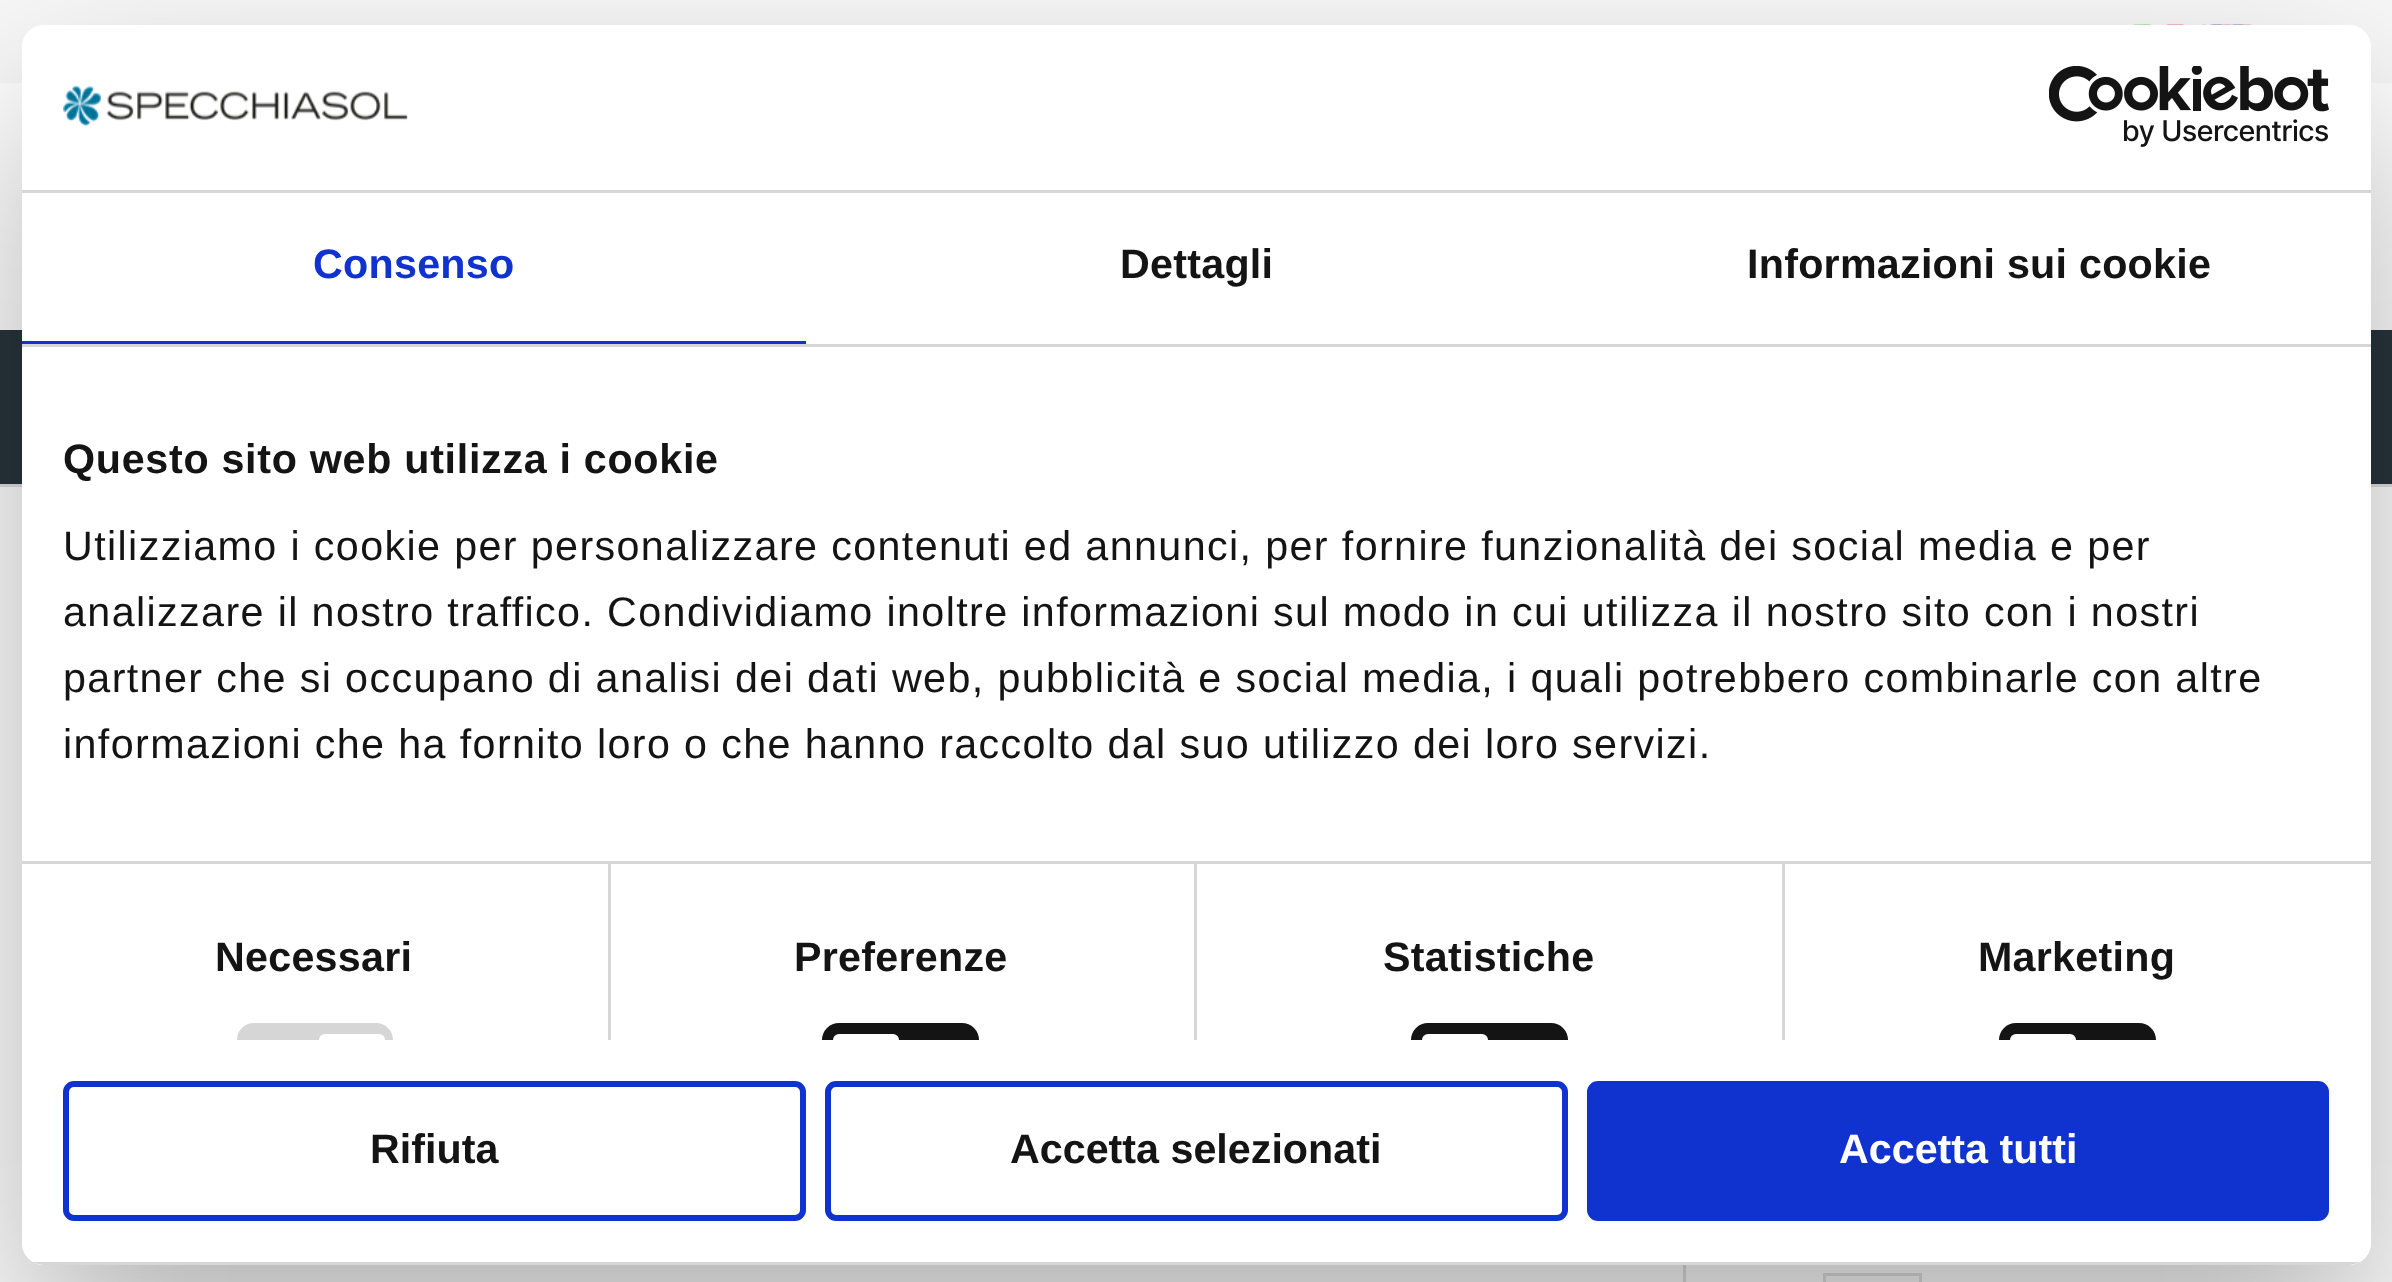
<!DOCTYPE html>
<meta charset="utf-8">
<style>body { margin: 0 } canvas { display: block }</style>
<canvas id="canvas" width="2392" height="1282"></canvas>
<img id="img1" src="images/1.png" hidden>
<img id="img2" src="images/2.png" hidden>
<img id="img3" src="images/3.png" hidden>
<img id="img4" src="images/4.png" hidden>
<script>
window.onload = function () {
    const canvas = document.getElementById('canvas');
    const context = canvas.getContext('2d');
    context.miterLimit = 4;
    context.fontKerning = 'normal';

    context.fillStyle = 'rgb(255, 255, 255)';
    context.fillRect(0, 0, 2392, 1282);
    context.fillStyle = 'rgb(248, 248, 248)';
    context.fillRect(0, 0, 2392, 83);
    context.drawImage(document.getElementById('img1'), 2133, 24, 51, 1);
    context.drawImage(document.getElementById('img2'), 2202, 24, 51, 1);
    context.fillStyle = 'rgb(40, 52, 60)';
    context.fillRect(0, 330, 2392, 154);
    context.fillStyle = 'rgb(225, 225, 225)';
    context.fillRect(0, 484, 2392, 3);
    context.fillRect(1683, 1265, 3, 17);
    context.fillStyle = 'rgb(252, 252, 252)';
    context.beginPath();
    context.rect(1824.5, 1274.5, 96, 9);
    context.fill();
    context.strokeStyle = 'rgb(225, 225, 225)';
    context.lineWidth = 3;
    context.stroke();
    context.save();
    context.beginPath();
    context.moveTo(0, 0);
    context.lineTo(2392, 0);
    context.lineTo(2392, 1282);
    context.lineTo(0, 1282);
    context.closePath();
    context.moveTo(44, 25);
    context.lineTo(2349, 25);
    context.bezierCurveTo(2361, 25, 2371, 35, 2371, 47);
    context.lineTo(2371, 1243);
    context.bezierCurveTo(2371, 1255, 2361, 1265, 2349, 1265);
    context.lineTo(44, 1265);
    context.bezierCurveTo(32, 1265, 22, 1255, 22, 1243);
    context.lineTo(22, 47);
    context.bezierCurveTo(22, 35, 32, 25, 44, 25);
    context.closePath();
    context.clip('evenodd');
    context.fillStyle = 'rgba(0, 0, 0, 0.3)';
    context.filter = 'blur(93.5px)';
    context.beginPath();
    context.roundRect(22, 113, 2349, 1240, 22);
    context.fill();
    context.filter = 'none';
    context.restore();
    context.fillStyle = 'rgb(255, 255, 255)';
    context.beginPath();
    context.roundRect(22, 25, 2349, 1240, 22);
    context.fill();
    context.fillStyle = 'rgb(214, 214, 214)';
    context.fillRect(22, 190, 2349, 3);
    context.drawImage(document.getElementById('img3'), 63, 85, 345, 41);
    context.drawImage(document.getElementById('img4'), 2049, 66, 280, 81);
    context.fillRect(22, 344, 2349, 3);
    context.fillStyle = 'rgb(16, 50, 207)';
    context.fillRect(22, 341, 784, 3);
    context.fillStyle = 'rgb(214, 214, 214)';
    context.fillRect(22, 861, 2349, 3);
    context.fillRect(608, 864, 3, 176);
    context.beginPath();
    context.roundRect(237, 1023, 156, 17, [44, 44, 0, 0]);
    context.fill();
    context.fillStyle = 'rgb(255, 255, 255)';
    context.beginPath();
    context.roundRect(319, 1034, 66, 6, [33, 33, 0, 0]);
    context.fill();
    context.fillStyle = 'rgb(214, 214, 214)';
    context.fillRect(1194, 864, 3, 176);
    context.fillStyle = 'rgb(20, 20, 20)';
    context.beginPath();
    context.roundRect(822, 1023, 157, 17, [44, 44, 0, 0]);
    context.fill();
    context.fillStyle = 'rgb(255, 255, 255)';
    context.beginPath();
    context.roundRect(833, 1034, 66, 6, [33, 33, 0, 0]);
    context.fill();
    context.fillStyle = 'rgb(214, 214, 214)';
    context.fillRect(1782, 864, 3, 176);
    context.fillStyle = 'rgb(20, 20, 20)';
    context.beginPath();
    context.roundRect(1411, 1023, 157, 17, [44, 44, 0, 0]);
    context.fill();
    context.fillStyle = 'rgb(255, 255, 255)';
    context.beginPath();
    context.roundRect(1422, 1034, 66, 6, [33, 33, 0, 0]);
    context.fill();
    context.fillStyle = 'rgb(20, 20, 20)';
    context.beginPath();
    context.roundRect(1999, 1023, 157, 17, [44, 44, 0, 0]);
    context.fill();
    context.fillStyle = 'rgb(255, 255, 255)';
    context.beginPath();
    context.roundRect(2010, 1034, 66, 6, [33, 33, 0, 0]);
    context.fill();
    context.save();
    context.beginPath();
    context.roundRect(22, 25, 2349, 1240, 22);
    context.clip();
    context.fillStyle = 'rgb(214, 214, 214)';
    context.fillRect(33, 1262, 2327, 3);
    context.restore();
    context.beginPath();
    context.roundRect(66, 1084, 737, 134, 8);
    context.strokeStyle = 'rgb(16, 50, 207)';
    context.lineWidth = 6;
    context.stroke();
    context.beginPath();
    context.roundRect(828, 1084, 737, 134, 8);
    context.stroke();
    context.fillStyle = 'rgb(16, 50, 207)';
    context.beginPath();
    context.roundRect(1590, 1084, 736, 134, 8);
    context.fill();
    context.stroke();
    context.letterSpacing = '0.25px';
    context.font = 'bold 41.25px Liberation Sans';
    context.fillText('Consenso', 313, 278);
    context.fillStyle = 'rgb(20, 20, 20)';
    context.fillText('Dettagli', 1120, 278);
    context.fillText('Informazioni sui cookie', 1747, 278);
    context.letterSpacing = '0.7px';
    context.fillText('Questo sito web utilizza i cookie', 63, 473);
    context.letterSpacing = '1.38px';
    context.font = '41.25px Liberation Sans';
    context.fillText('Utilizziamo i cookie per personalizzare contenuti ed annunci, per fornire funzionalità dei social media e per', 63, 560);
    context.fillText('analizzare il nostro traffico. Condividiamo inoltre informazioni sul modo in cui utilizza il nostro sito con i nostri', 63, 626);
    context.fillText('partner che si occupano di analisi dei dati web, pubblicità e social media, i quali potrebbero combinarle con altre', 63, 692);
    context.fillText('informazioni che ha fornito loro o che hanno raccolto dal suo utilizzo dei loro servizi.', 63, 758);
    context.letterSpacing = '0.25px';
    context.font = 'bold 41.25px Liberation Sans';
    context.fillText('Necessari', 215, 971);
    context.fillText('Preferenze', 794, 971);
    context.fillText('Statistiche', 1383, 971);
    context.fillText('Marketing', 1978, 971);
    context.letterSpacing = '0px';
    context.fillText('Rifiuta', 370, 1163);
    context.fillText('Accetta selezionati', 1010, 1163);
    context.fillStyle = 'rgb(255, 255, 255)';
    context.fillText('Accetta tutti', 1839, 1163);
};
</script>
